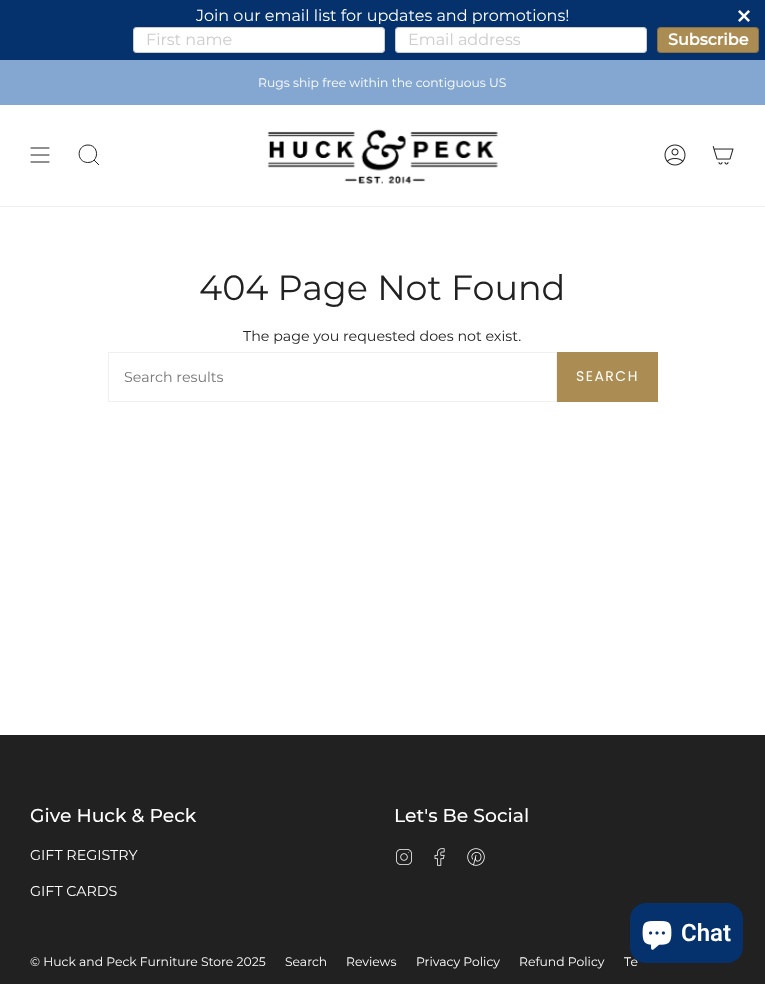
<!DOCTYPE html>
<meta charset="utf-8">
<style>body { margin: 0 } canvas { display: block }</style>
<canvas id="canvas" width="765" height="984"></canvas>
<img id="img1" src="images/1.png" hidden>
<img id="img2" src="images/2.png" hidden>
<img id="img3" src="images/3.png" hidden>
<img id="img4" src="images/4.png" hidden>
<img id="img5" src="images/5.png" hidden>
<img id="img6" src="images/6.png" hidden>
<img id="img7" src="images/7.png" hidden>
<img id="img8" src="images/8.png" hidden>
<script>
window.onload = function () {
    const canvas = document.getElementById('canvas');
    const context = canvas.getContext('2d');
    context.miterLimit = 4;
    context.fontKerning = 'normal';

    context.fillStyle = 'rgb(255, 255, 255)';
    context.fillRect(0, 0, 765, 984);
    context.fillStyle = 'rgb(5, 50, 109)';
    context.fillRect(0, 0, 765, 60);
    context.fillStyle = 'rgb(255, 255, 255)';
    context.beginPath();
    context.roundRect(133, 27, 252, 26, 4);
    context.fill();
    context.beginPath();
    context.roundRect(133.5, 27.5, 251, 25, 3.5);
    context.strokeStyle = 'rgba(0, 0, 0, 0.2)';
    context.stroke();
    context.beginPath();
    context.roundRect(395, 27, 252, 26, 4);
    context.fill();
    context.beginPath();
    context.roundRect(395.5, 27.5, 251, 25, 3.5);
    context.stroke();
    context.fillStyle = 'rgb(171, 140, 82)';
    context.beginPath();
    context.roundRect(657, 27, 102, 26, 4);
    context.fill();
    context.beginPath();
    context.roundRect(657.5, 27.5, 101, 25, 3.5);
    context.stroke();
    context.drawImage(document.getElementById('img1'), 738, 10, 12, 12);
    context.fillStyle = 'rgb(132, 167, 209)';
    context.fillRect(0, 60, 765, 45);
    context.fillStyle = 'rgb(240, 240, 240)';
    context.fillRect(0, 206, 765, 1);
    context.beginPath();
    context.moveTo(31, 148);
    context.lineTo(49, 148);
    context.moveTo(31, 155);
    context.lineTo(49, 155);
    context.moveTo(31, 162);
    context.lineTo(49, 162);
    context.strokeStyle = 'rgb(33, 33, 33)';
    context.lineCap = 'round';
    context.lineJoin = 'round';
    context.stroke();
    context.beginPath();
    context.moveTo(88, 145);
    context.bezierCurveTo(99.5, 145, 99.5, 163, 87.5, 162.5);
    context.bezierCurveTo(76, 162, 76.5, 145, 88, 145);
    context.closePath();
    context.moveTo(94, 160);
    context.lineTo(99, 165);
    context.lineCap = 'butt';
    context.lineJoin = 'miter';
    context.stroke();
    context.drawImage(document.getElementById('img2'), 267, 129, 231, 55);
    context.drawImage(document.getElementById('img3'), 664, 144, 22, 22);
    context.drawImage(document.getElementById('img4'), 712, 146, 22, 19);
    context.strokeStyle = 'rgb(240, 240, 240)';
    context.strokeRect(108.5, 352.5, 448, 49);
    context.fillStyle = 'rgb(171, 140, 82)';
    context.fillRect(557, 352, 101, 50);
    context.fillStyle = 'rgb(33, 33, 33)';
    context.fillRect(0, 735, 765, 249);
    context.drawImage(document.getElementById('img5'), 396, 849, 16, 16);
    context.drawImage(document.getElementById('img6'), 434, 848, 11, 18);
    context.drawImage(document.getElementById('img7'), 467, 848, 18, 18);
    context.font = '16px Montserrat';
    context.fillStyle = 'rgb(255, 255, 255)';
    context.fillText('Join our email list for updates and promotions!', 196, 21);
    context.fillStyle = 'rgb(204, 204, 204)';
    context.fillText('First name', 146, 45);
    context.fillText('Email address', 408, 45);
    context.font = 'bold 16px Montserrat';
    context.fillStyle = 'rgb(255, 255, 255)';
    context.fillText('Subscribe', 668, 45);
    context.font = '12.35px Montserrat';
    context.fillText('Rugs ship free within the contiguous US', 258, 87);
    context.font = '35px Montserrat';
    context.fillStyle = 'rgb(33, 33, 33)';
    context.fillText('404 Page Not Found', 199, 300);
    context.font = '14.25px Montserrat';
    context.fillText('The page you requested does not exist.', 243, 341);
    context.fillStyle = 'rgb(117, 117, 117)';
    context.fillText('Search results', 124, 382);
    context.letterSpacing = '1.5px';
    context.font = '14px Poppins';
    context.fillStyle = 'rgb(255, 255, 255)';
    context.fillText('SEARCH', 576, 381);
    context.letterSpacing = '0px';
    context.font = '500 18.75px Montserrat';
    context.fillText('Give Huck & Peck', 30, 822);
    context.font = '14.25px Montserrat';
    context.fillText('GIFT REGISTRY', 30, 860);
    context.fillText('GIFT CARDS', 30, 896);
    context.font = '500 18.75px Montserrat';
    context.fillText('Let\'s Be Social', 394, 822);
    context.font = '12.35px Montserrat';
    context.fillText('© Huck and Peck Furniture Store 2025', 30, 966);
    context.fillText('Search', 285, 966);
    context.fillText('Reviews', 346, 966);
    context.fillText('Privacy Policy', 416, 966);
    context.fillText('Refund Policy', 519, 966);
    context.fillText('Te', 624, 966);
    context.fillStyle = 'rgb(5, 50, 109)';
    context.beginPath();
    context.roundRect(630, 903, 113, 60, 16);
    context.fill();
    context.drawImage(document.getElementById('img8'), 642, 921, 30, 29);
    context.font = '600 24px Roboto';
    context.fillStyle = 'rgb(255, 255, 255)';
    context.fillText('Chat', 681, 941);
};
</script>
